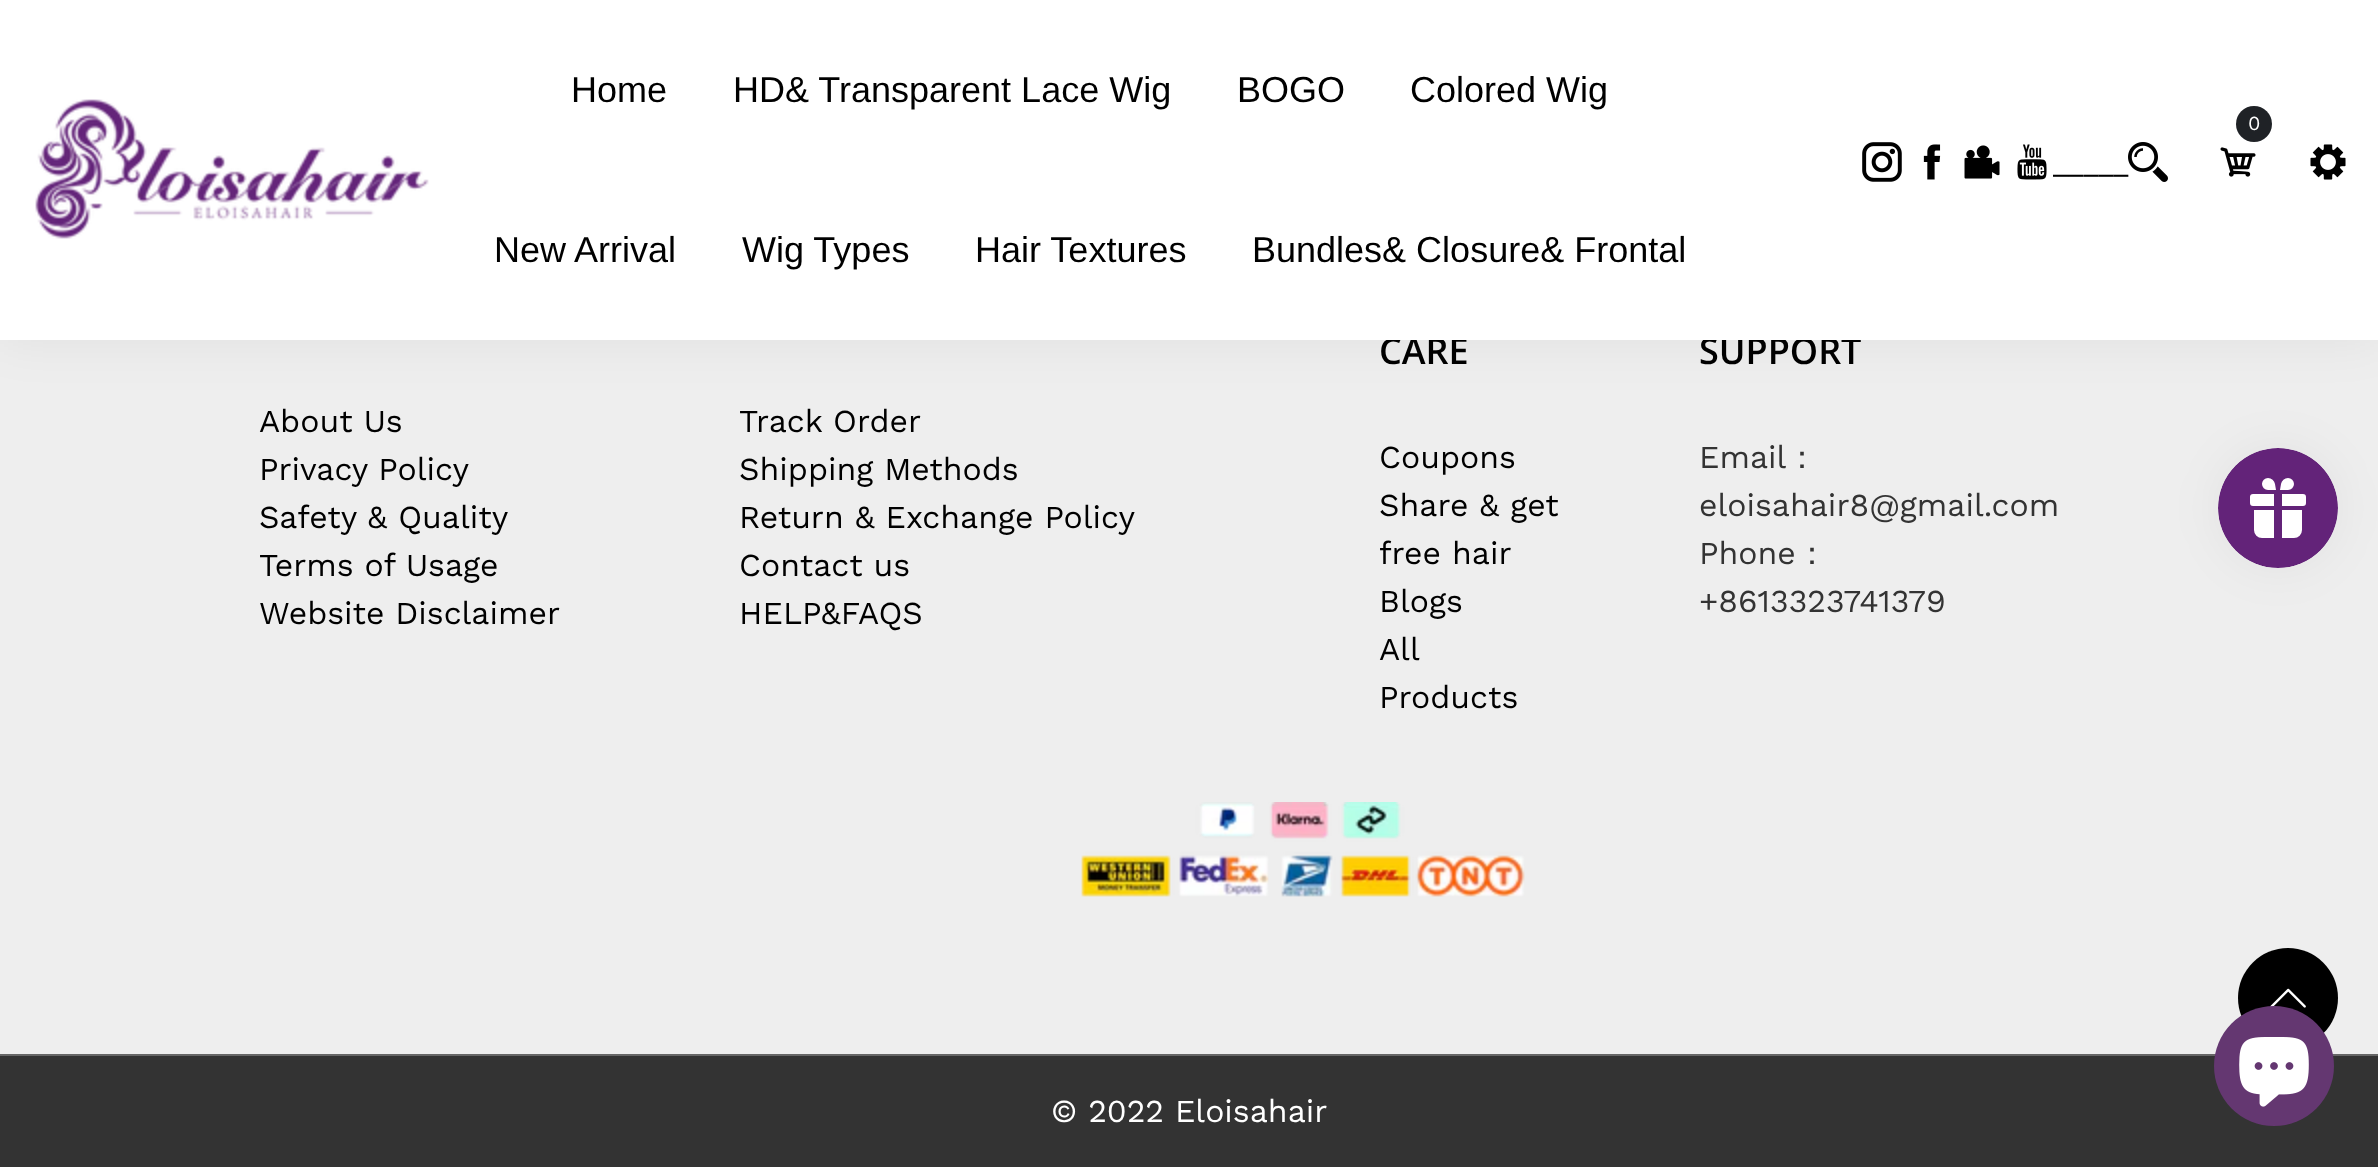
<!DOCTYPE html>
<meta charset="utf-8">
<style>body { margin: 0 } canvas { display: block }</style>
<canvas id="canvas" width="2378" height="1167"></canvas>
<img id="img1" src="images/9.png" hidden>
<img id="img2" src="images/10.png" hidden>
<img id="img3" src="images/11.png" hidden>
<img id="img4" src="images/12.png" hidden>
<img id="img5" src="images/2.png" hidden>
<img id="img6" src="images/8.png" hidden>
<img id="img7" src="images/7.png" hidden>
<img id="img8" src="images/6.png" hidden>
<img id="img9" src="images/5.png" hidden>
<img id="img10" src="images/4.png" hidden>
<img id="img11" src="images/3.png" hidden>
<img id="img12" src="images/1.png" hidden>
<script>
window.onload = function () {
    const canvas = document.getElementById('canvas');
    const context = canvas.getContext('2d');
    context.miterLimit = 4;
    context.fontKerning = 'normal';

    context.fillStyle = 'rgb(238, 238, 238)';
    context.fillRect(0, 0, 2378, 1167);
    context.fillStyle = 'rgba(0, 0, 0, 0.06)';
    context.filter = 'blur(25px)';
    context.beginPath();
    context.rect(0, 0, 2378, 340);
    context.fill();
    context.filter = 'none';
    context.drawImage(document.getElementById('img1'), 1081, 802, 444, 95);
    context.fillStyle = 'rgb(51, 51, 51)';
    context.fillRect(0, 1056, 2378, 111);
    context.fillStyle = 'rgb(102, 102, 102)';
    context.fillRect(0, 1054, 2378, 2);
    context.fillStyle = 'rgba(0, 0, 0, 0.05)';
    context.filter = 'blur(25px)';
    context.beginPath();
    context.roundRect(2218, 448, 120, 120, 60);
    context.fill();
    context.filter = 'none';
    context.drawImage(document.getElementById('img2'), 2218, 448, 120, 120);
    context.fillStyle = 'rgb(0, 0, 0)';
    context.beginPath();
    context.arc(2288, 998, 50, 0, 2 * Math.PI);
    context.fill();
    context.drawImage(document.getElementById('img3'), 2270, 988, 36, 20);
    context.fillStyle = 'rgb(100, 55, 113)';
    context.beginPath();
    context.arc(2274, 1066, 60, 0, 2 * Math.PI);
    context.fill();
    context.drawImage(document.getElementById('img4'), 2239, 1037, 70, 70);
    context.font = '32px Work Sans';
    context.fillStyle = 'rgb(0, 0, 0)';
    context.fillText('About Us', 259, 432);
    context.fillText('Privacy Policy', 259, 480);
    context.fillText('Safety & Quality', 259, 528);
    context.fillText('Terms of Usage', 259, 576);
    context.fillText('Website Disclaimer', 259, 624);
    context.fillText('Track Order', 739, 432);
    context.fillText('Shipping Methods', 739, 480);
    context.fillText('Return & Exchange Policy', 739, 528);
    context.fillText('Contact us', 739, 576);
    context.fillText('HELP&FAQS', 739, 624);
    context.font = '600 36px Open Sans';
    context.fillText('CARE', 1379, 364);
    context.font = '32px Work Sans';
    context.fillText('Coupons', 1379, 468);
    context.fillText('Share & get', 1379, 516);
    context.fillText('free hair', 1379, 564);
    context.fillText('Blogs', 1379, 612);
    context.fillText('All', 1379, 660);
    context.fillText('Products', 1379, 708);
    context.font = '600 36px Open Sans';
    context.fillText('SUPPORT', 1699, 364);
    context.fillStyle = 'rgb(255, 255, 255)';
    context.fillRect(0, 0, 2378, 340);
    context.fillStyle = 'rgb(31, 34, 38)';
    context.beginPath();
    context.arc(2254, 124, 18, 0, 2 * Math.PI);
    context.fill();
    context.font = '20px Work Sans';
    context.fillStyle = 'rgb(255, 255, 255)';
    context.fillText('0', 2248, 130);
    context.drawImage(document.getElementById('img5'), 2220, 147, 36, 30);
    context.drawImage(document.getElementById('img6'), 2310, 144, 36, 36);
    context.drawImage(document.getElementById('img7'), 2128, 142, 40, 40);
    context.font = '28px Work Sans';
    context.fillStyle = 'rgb(0, 0, 0)';
    context.fillText('_____', 2053, 172);
    context.drawImage(document.getElementById('img8'), 2017, 144, 30, 36);
    context.drawImage(document.getElementById('img9'), 1964, 145, 36, 34);
    context.drawImage(document.getElementById('img10'), 1923, 144, 18, 36);
    context.drawImage(document.getElementById('img11'), 1862, 142, 40, 40);
    context.font = '36px Arimo';
    context.fillText('Bundles& Closure& Frontal', 1252, 262);
    context.fillText('Hair Textures', 975, 262);
    context.fillText('Wig Types', 742, 262);
    context.fillText('New Arrival', 494, 262);
    context.fillText('Colored Wig', 1410, 102);
    context.fillText('BOGO', 1237, 102);
    context.fillText('HD& Transparent Lace Wig', 733, 102);
    context.fillText('Home', 571, 102);
    context.drawImage(document.getElementById('img12'), 35, 99, 394, 140);
    context.font = '32px Work Sans';
    context.fillStyle = 'rgb(51, 51, 51)';
    context.fillText('Email', 1699, 468);
    context.font = '500 32px WenQuanYi Zen Hei';
    context.fillText('：', 1786, 468);
    context.font = '32px Work Sans';
    context.fillText('eloisahair8@gmail.com', 1699, 516);
    context.fillText('Phone', 1699, 564);
    context.font = '500 32px WenQuanYi Zen Hei';
    context.fillText('：', 1796, 564);
    context.font = '32px Work Sans';
    context.fillText('+8613323741379', 1699, 612);
    context.fillStyle = 'rgb(255, 255, 255)';
    context.fillText('© 2022 Eloisahair', 1051, 1122);
};
</script>
